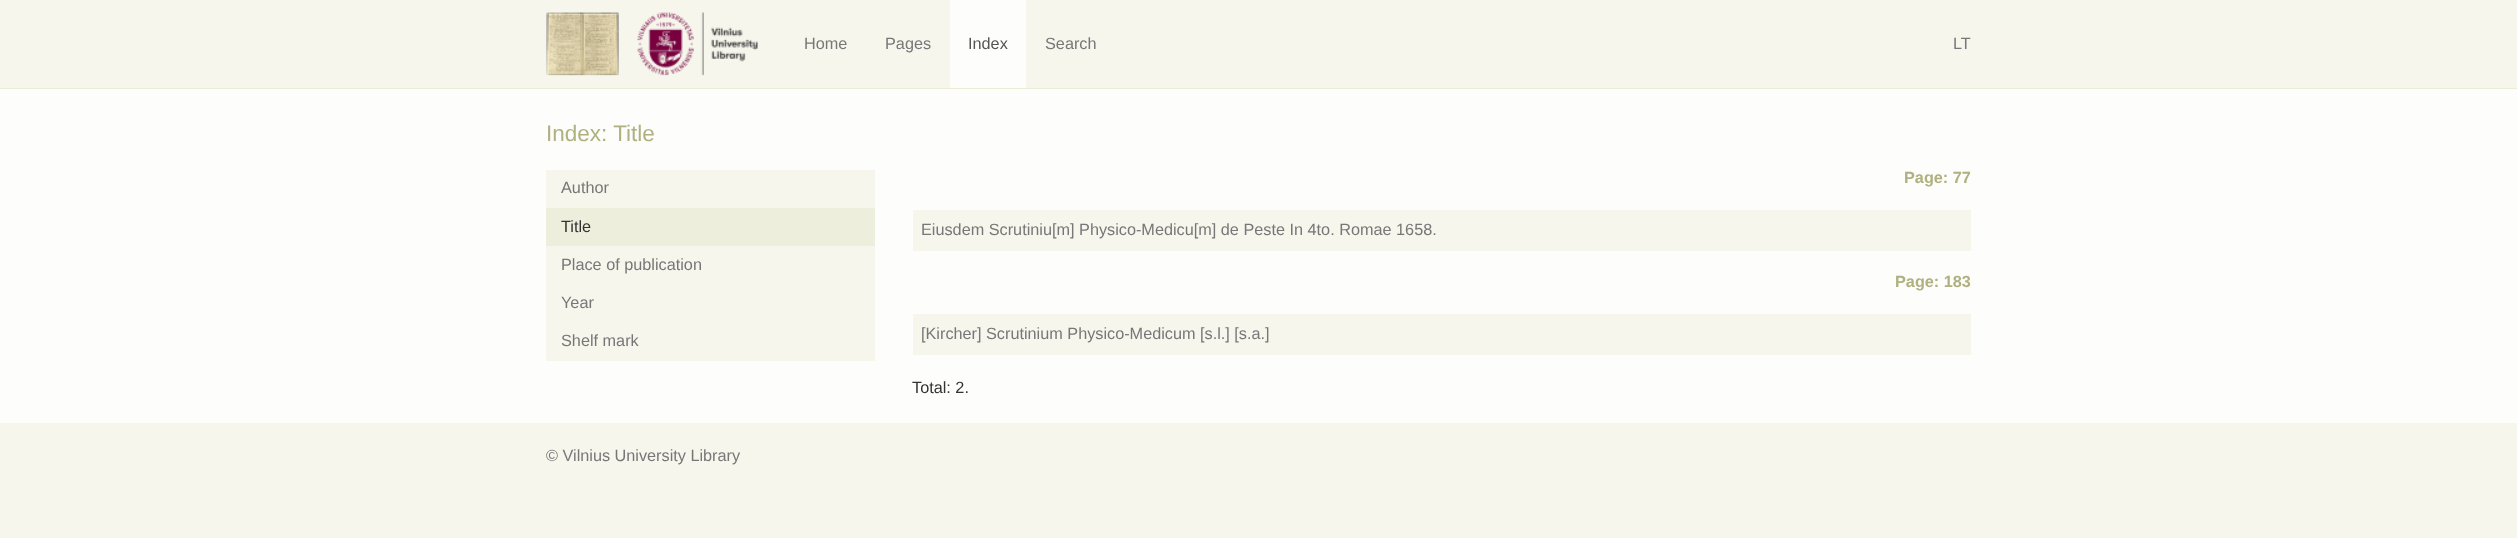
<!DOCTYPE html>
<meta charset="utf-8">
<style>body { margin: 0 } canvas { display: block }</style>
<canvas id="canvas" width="2517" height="538"></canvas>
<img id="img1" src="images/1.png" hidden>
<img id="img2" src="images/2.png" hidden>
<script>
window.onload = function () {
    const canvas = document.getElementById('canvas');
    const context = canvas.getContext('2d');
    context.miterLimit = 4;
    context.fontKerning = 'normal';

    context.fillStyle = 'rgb(246, 246, 237)';
    context.fillRect(0, 0, 2517, 538);
    context.fillStyle = 'rgb(236, 236, 217)';
    context.fillRect(0, 88, 2517, 1);
    context.drawImage(document.getElementById('img1'), 546, 12, 73, 64);
    context.drawImage(document.getElementById('img2'), 637, 12, 121, 64);
    context.fillStyle = 'rgb(253, 253, 251)';
    context.fillRect(950, 0, 76, 88);
    context.fillRect(0, 89, 2517, 334);
    context.fillStyle = 'rgb(246, 246, 237)';
    context.fillRect(546, 170, 329, 38);
    context.fillStyle = 'rgb(238, 238, 220)';
    context.fillRect(546, 208, 329, 38);
    context.fillStyle = 'rgb(246, 246, 237)';
    context.fillRect(546, 246, 329, 115);
    context.fillRect(913, 210, 1058, 41);
    context.fillRect(913, 314, 1058, 41);
    context.font = '16.25px Liberation Sans';
    context.fillStyle = 'rgb(119, 119, 119)';
    context.fillText('Home', 804, 49);
    context.fillText('Pages', 885, 49);
    context.fillStyle = 'rgb(85, 85, 85)';
    context.fillText('Index', 968, 49);
    context.fillStyle = 'rgb(119, 119, 119)';
    context.fillText('Search', 1045, 49);
    context.fillText('LT', 1953, 49);
    context.font = '22.5px Liberation Sans';
    context.fillStyle = 'rgb(176, 176, 128)';
    context.fillText('Index: Title', 546, 141);
    context.font = '16.25px Liberation Sans';
    context.fillStyle = 'rgb(119, 119, 119)';
    context.fillText('Author', 561, 193);
    context.fillStyle = 'rgb(51, 51, 51)';
    context.fillText('Title', 561, 232);
    context.fillStyle = 'rgb(119, 119, 119)';
    context.fillText('Place of publication', 561, 270);
    context.fillText('Year', 561, 308);
    context.fillText('Shelf mark', 561, 346);
    context.font = 'bold 16.25px Liberation Sans';
    context.fillStyle = 'rgb(176, 176, 128)';
    context.fillText('Page: 77', 1904, 183);
    context.font = '16.25px Liberation Sans';
    context.fillStyle = 'rgb(119, 119, 119)';
    context.fillText('Eiusdem Scrutiniu[m] Physico-Medicu[m] de Peste In 4to. Romae 1658.', 921, 235);
    context.font = 'bold 16.25px Liberation Sans';
    context.fillStyle = 'rgb(176, 176, 128)';
    context.fillText('Page: 183', 1895, 287);
    context.font = '16.25px Liberation Sans';
    context.fillStyle = 'rgb(119, 119, 119)';
    context.fillText('[Kircher] Scrutinium Physico-Medicum [s.l.] [s.a.]', 921, 339);
    context.fillStyle = 'rgb(51, 51, 51)';
    context.fillText('Total: 2.', 912, 393);
    context.fillStyle = 'rgb(119, 119, 119)';
    context.fillText('© Vilnius University Library', 546, 461);
};
</script>
